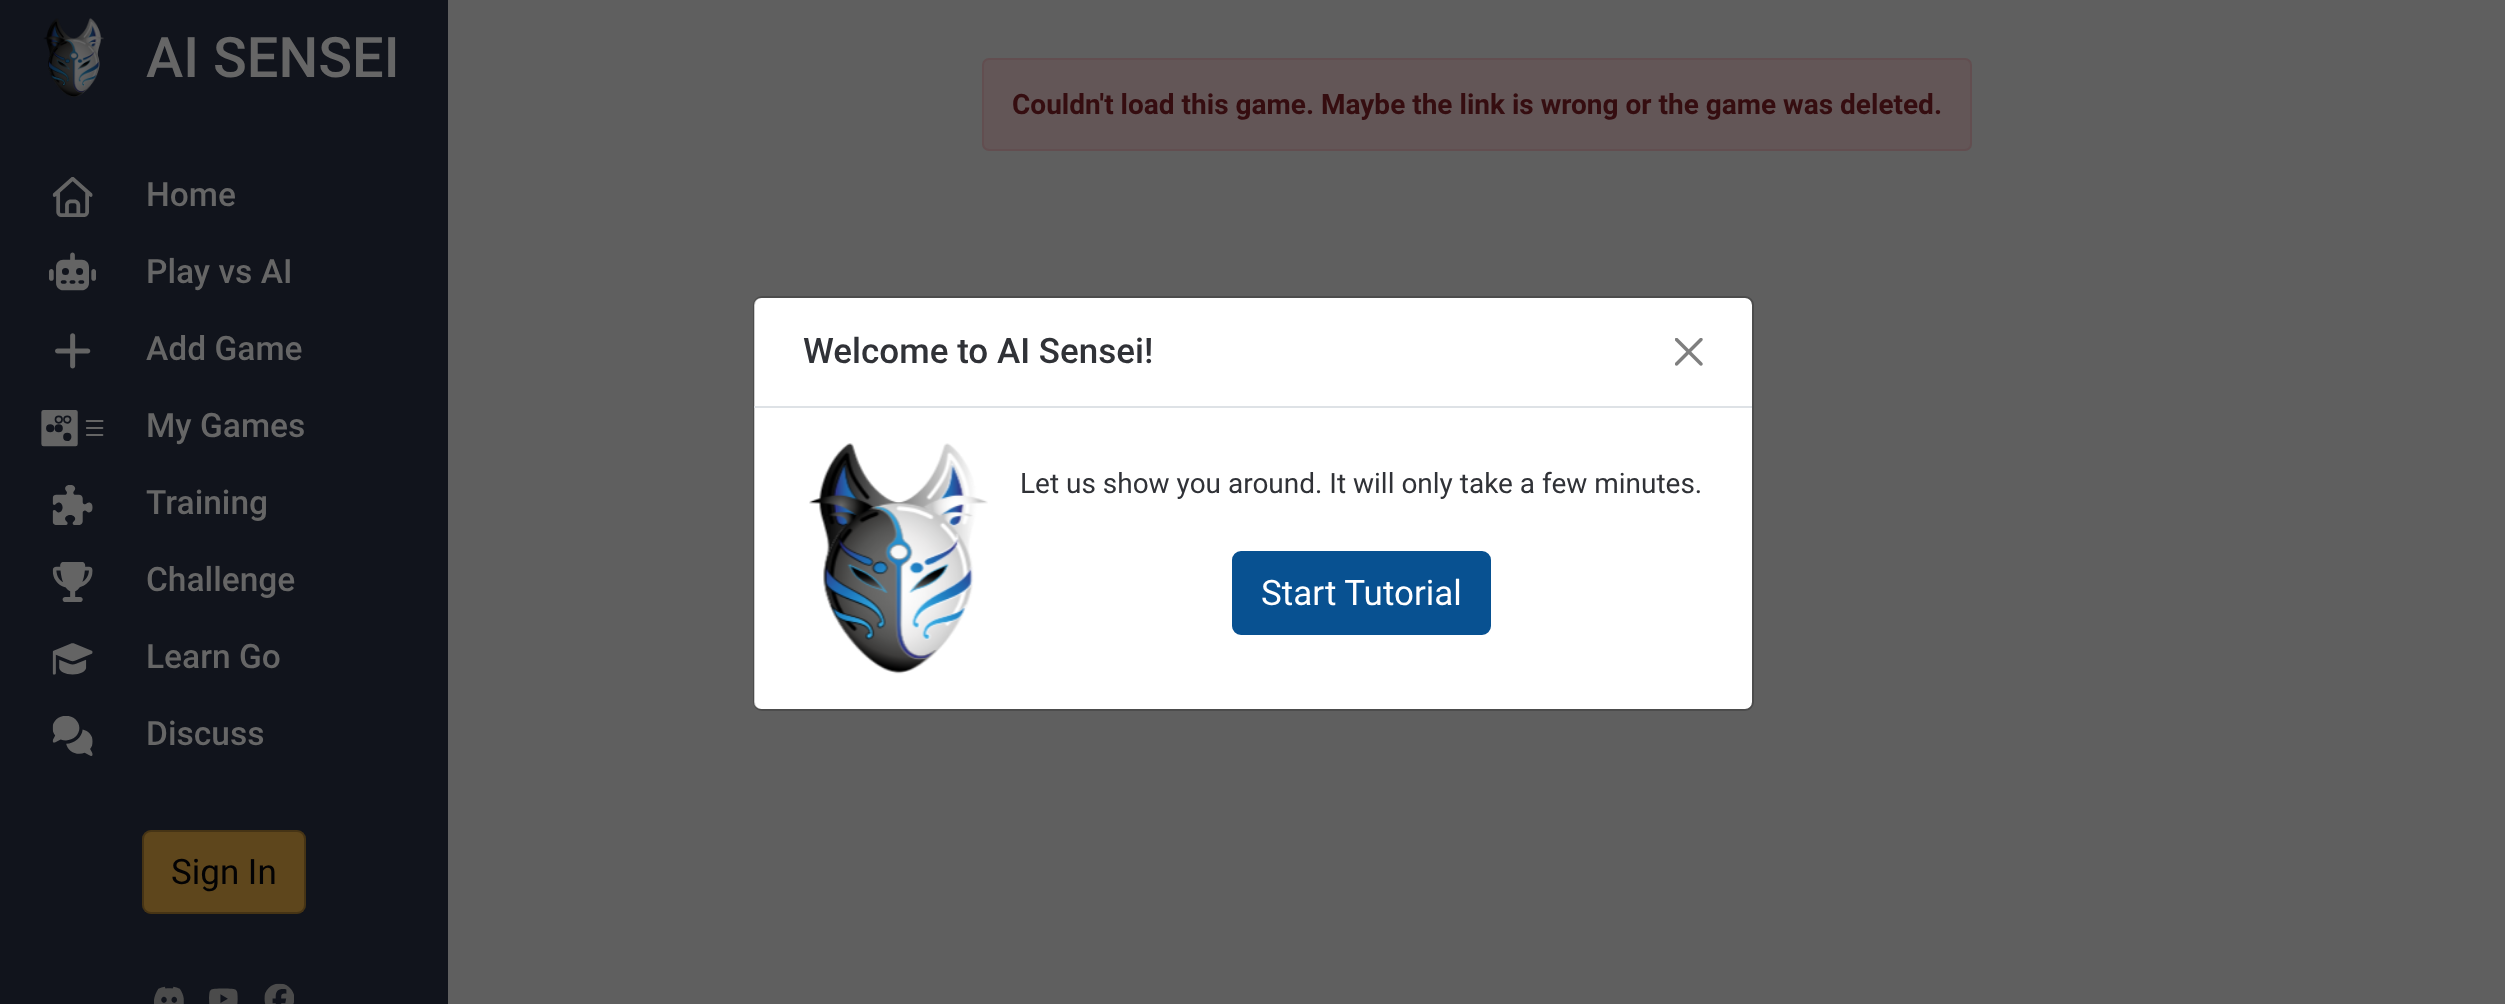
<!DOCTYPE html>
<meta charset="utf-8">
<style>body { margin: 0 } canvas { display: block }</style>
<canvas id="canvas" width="2505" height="1004"></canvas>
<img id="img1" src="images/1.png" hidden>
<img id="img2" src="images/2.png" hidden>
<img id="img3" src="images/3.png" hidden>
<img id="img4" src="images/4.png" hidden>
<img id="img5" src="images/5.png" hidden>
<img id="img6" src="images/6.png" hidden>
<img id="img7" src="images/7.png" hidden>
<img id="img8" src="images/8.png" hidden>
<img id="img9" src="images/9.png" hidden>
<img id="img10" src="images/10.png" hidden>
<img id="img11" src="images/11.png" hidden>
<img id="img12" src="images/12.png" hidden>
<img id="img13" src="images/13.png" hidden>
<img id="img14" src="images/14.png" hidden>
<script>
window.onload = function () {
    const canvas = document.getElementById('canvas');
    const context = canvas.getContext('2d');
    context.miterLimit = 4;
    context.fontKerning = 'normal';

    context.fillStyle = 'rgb(95, 95, 95)';
    context.fillRect(0, 0, 2505, 1004);
    context.fillStyle = 'rgb(17, 20, 28)';
    context.fillRect(0, 0, 448, 1004);
    context.drawImage(document.getElementById('img1'), 43, 18, 61, 79);
    context.drawImage(document.getElementById('img2'), 52, 177, 41, 40);
    context.drawImage(document.getElementById('img3'), 49, 252, 47, 39);
    context.drawImage(document.getElementById('img4'), 55, 333, 36, 36);
    context.drawImage(document.getElementById('img5'), 41, 410, 63, 37);
    context.drawImage(document.getElementById('img6'), 52, 485, 41, 40);
    context.drawImage(document.getElementById('img7'), 52, 562, 41, 40);
    context.drawImage(document.getElementById('img8'), 52, 643, 41, 32);
    context.drawImage(document.getElementById('img9'), 52, 716, 41, 40);
    context.fillStyle = 'rgb(94, 70, 28)';
    context.beginPath();
    context.roundRect(142, 830, 164, 84, 9);
    context.fill();
    context.beginPath();
    context.roundRect(143, 831, 162, 82, 8);
    context.strokeStyle = 'rgba(0, 0, 0, 0.25)';
    context.lineWidth = 2;
    context.stroke();
    context.drawImage(document.getElementById('img10'), 154, 986, 30, 18);
    context.drawImage(document.getElementById('img11'), 209, 988, 29, 16);
    context.drawImage(document.getElementById('img12'), 264, 983, 30, 21);
    context.fillStyle = 'rgb(99, 86, 87)';
    context.beginPath();
    context.roundRect(983, 59, 988, 91, 6);
    context.fill();
    context.strokeStyle = 'rgb(98, 78, 80)';
    context.stroke();
    context.fillStyle = 'rgb(255, 255, 255)';
    context.beginPath();
    context.roundRect(754, 298, 998, 411, 7);
    context.fill();
    context.beginPath();
    context.roundRect(754, 297, 999, 413, 8);
    context.strokeStyle = 'rgba(0, 0, 0, 0.2)';
    context.stroke();
    context.fillStyle = 'rgb(222, 226, 230)';
    context.fillRect(754, 406, 998, 2);
    context.drawImage(document.getElementById('img13'), 1675, 338, 28, 28);
    context.drawImage(document.getElementById('img14'), 809, 443, 179, 231);
    context.fillStyle = 'rgb(8, 81, 145)';
    context.beginPath();
    context.roundRect(1233, 552, 257, 82, 8);
    context.fill();
    context.strokeStyle = 'rgb(8, 81, 145)';
    context.stroke();
    context.font = '500 56px Roboto';
    context.fillStyle = 'rgb(102, 102, 102)';
    context.fillText('AI SENSEI', 146, 77);
    context.font = '500 33.5px Roboto';
    context.fillText('Home', 146, 206);
    context.fillText('Play vs AI', 146, 283);
    context.fillText('Add Game', 146, 360);
    context.fillText('My Games', 146, 437);
    context.fillText('Training', 146, 514);
    context.fillText('Challenge', 146, 591);
    context.fillText('Learn Go', 146, 668);
    context.fillText('Discuss', 146, 745);
    context.font = '35px Roboto';
    context.fillStyle = 'rgb(2, 2, 4)';
    context.fillText('Sign In', 171, 884);
    context.font = 'bold 28px Roboto';
    context.fillStyle = 'rgb(53, 13, 16)';
    context.fillText('Couldn\'t load this game. Maybe the link is wrong or the game was deleted.', 1012, 114);
    context.font = '500 35px Roboto';
    context.fillStyle = 'rgb(48, 50, 55)';
    context.fillText('Welcome to AI Sensei!', 803, 363);
    context.font = '28px Roboto';
    context.fillText('Let us show you around. It will only take a few minutes.', 1020, 493);
    context.font = '35px Roboto';
    context.fillStyle = 'rgb(255, 255, 255)';
    context.fillText('Start Tutorial', 1261, 605);
};
</script>
